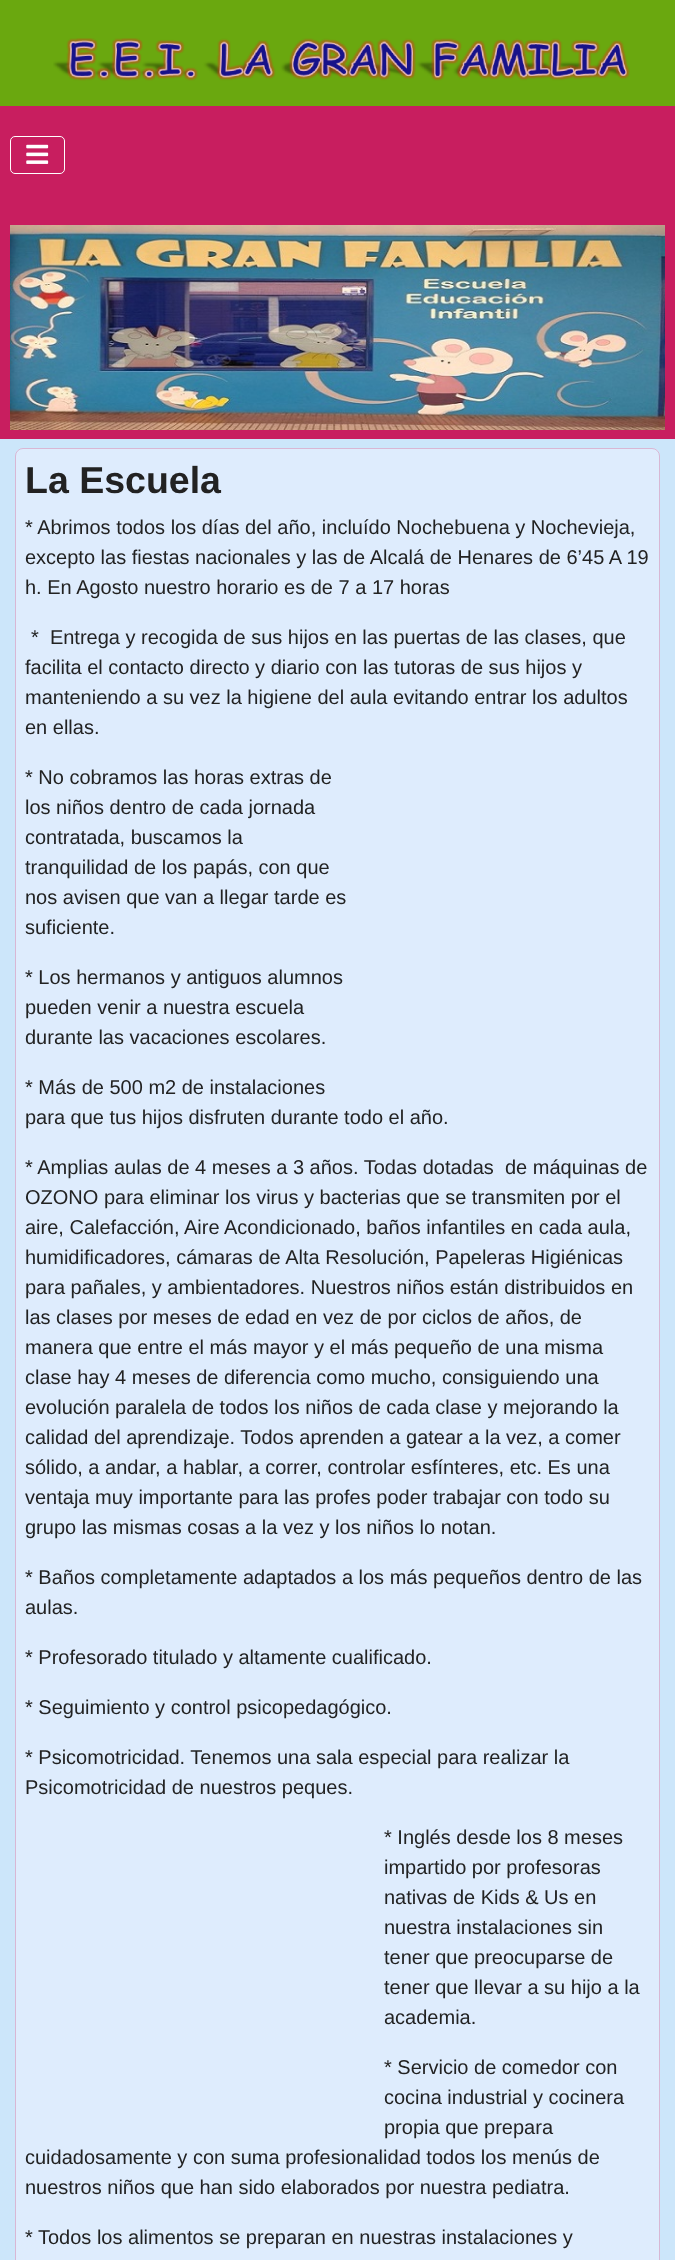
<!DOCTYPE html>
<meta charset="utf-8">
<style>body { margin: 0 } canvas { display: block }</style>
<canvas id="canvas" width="675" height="2260"></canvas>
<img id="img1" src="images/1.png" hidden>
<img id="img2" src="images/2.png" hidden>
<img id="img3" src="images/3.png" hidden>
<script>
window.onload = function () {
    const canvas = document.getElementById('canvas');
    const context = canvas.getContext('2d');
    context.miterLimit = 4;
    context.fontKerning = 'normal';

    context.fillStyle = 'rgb(106, 168, 15)';
    context.fillRect(0, 0, 675, 2260);
    context.drawImage(document.getElementById('img1'), 53, 38, 577, 43);
    context.fillStyle = 'rgb(200, 30, 95)';
    context.fillRect(0, 106, 675, 333);
    context.beginPath();
    context.roundRect(10.5, 136.5, 54, 37, 4.5);
    context.strokeStyle = 'rgb(255, 255, 255)';
    context.stroke();
    context.drawImage(document.getElementById('img2'), 26, 144, 23, 20);
    context.drawImage(document.getElementById('img3'), 10, 225, 655, 205);
    context.fillStyle = 'rgb(204, 230, 250)';
    context.fillRect(0, 439, 675, 1821);
    context.fillStyle = 'rgb(222, 236, 253)';
    context.beginPath();
    context.roundRect(15, 448, 645, 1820, 8);
    context.fill();
    context.beginPath();
    context.roundRect(15.5, 448.5, 644, 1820, 7.5);
    context.strokeStyle = 'rgba(200, 30, 95, 0.26)';
    context.stroke();
    context.font = 'bold 37.5px Liberation Sans';
    context.fillStyle = 'rgb(34, 34, 34)';
    context.fillText('La Escuela', 25, 493);
    context.font = '20px Liberation Sans';
    context.fillText('* Abrimos todos los días del año, incluído Nochebuena y Nochevieja,', 25, 534);
    context.fillText('excepto las fiestas nacionales y las de Alcalá de Henares de 6’45 A 19', 25, 564);
    context.fillText('h. En Agosto nuestro horario es de 7 a 17 horas', 25, 594);
    context.fillText('*  Entrega y recogida de sus hijos en las puertas de las clases, que', 31, 644);
    context.fillText('facilita el contacto directo y diario con las tutoras de sus hijos y', 25, 674);
    context.fillText('manteniendo a su vez la higiene del aula evitando entrar los adultos', 25, 704);
    context.fillText('en ellas.', 25, 734);
    context.fillText('* No cobramos las horas extras de', 25, 784);
    context.fillText('los niños dentro de cada jornada', 25, 814);
    context.fillText('contratada, buscamos la', 25, 844);
    context.fillText('tranquilidad de los papás, con que', 25, 874);
    context.fillText('nos avisen que van a llegar tarde es', 25, 904);
    context.fillText('suficiente.', 25, 934);
    context.fillText('* Los hermanos y antiguos alumnos', 25, 984);
    context.fillText('pueden venir a nuestra escuela', 25, 1014);
    context.fillText('durante las vacaciones escolares.', 25, 1044);
    context.fillText('* Más de 500 m2 de instalaciones', 25, 1094);
    context.fillText('para que tus hijos disfruten durante todo el año.', 25, 1124);
    context.fillText('* Amplias aulas de 4 meses a 3 años. Todas dotadas  de máquinas de', 25, 1174);
    context.fillText('OZONO para eliminar los virus y bacterias que se transmiten por el', 25, 1204);
    context.fillText('aire, Calefacción, Aire Acondicionado, baños infantiles en cada aula,', 25, 1234);
    context.fillText('humidificadores, cámaras de Alta Resolución, Papeleras Higiénicas', 25, 1264);
    context.fillText('para pañales, y ambientadores. Nuestros niños están distribuidos en', 25, 1294);
    context.fillText('las clases por meses de edad en vez de por ciclos de años, de', 25, 1324);
    context.fillText('manera que entre el más mayor y el más pequeño de una misma', 25, 1354);
    context.fillText('clase hay 4 meses de diferencia como mucho, consiguiendo una', 25, 1384);
    context.fillText('evolución paralela de todos los niños de cada clase y mejorando la', 25, 1414);
    context.fillText('calidad del aprendizaje. Todos aprenden a gatear a la vez, a comer', 25, 1444);
    context.fillText('sólido, a andar, a hablar, a correr, controlar esfínteres, etc. Es una', 25, 1474);
    context.fillText('ventaja muy importante para las profes poder trabajar con todo su', 25, 1504);
    context.fillText('grupo las mismas cosas a la vez y los niños lo notan.', 25, 1534);
    context.fillText('* Baños completamente adaptados a los más pequeños dentro de las', 25, 1584);
    context.fillText('aulas.', 25, 1614);
    context.fillText('* Profesorado titulado y altamente cualificado.', 25, 1664);
    context.fillText('* Seguimiento y control psicopedagógico.', 25, 1714);
    context.fillText('* Psicomotricidad. Tenemos una sala especial para realizar la', 25, 1764);
    context.fillText('Psicomotricidad de nuestros peques.', 25, 1794);
    context.fillText('* Inglés desde los 8 meses', 384, 1844);
    context.fillText('impartido por profesoras', 384, 1874);
    context.fillText('nativas de Kids & Us en', 384, 1904);
    context.fillText('nuestra instalaciones sin', 384, 1934);
    context.fillText('tener que preocuparse de', 384, 1964);
    context.fillText('tener que llevar a su hijo a la', 384, 1994);
    context.fillText('academia.', 384, 2024);
    context.fillText('* Servicio de comedor con', 384, 2074);
    context.fillText('cocina industrial y cocinera', 384, 2104);
    context.fillText('propia que prepara', 384, 2134);
    context.fillText('cuidadosamente y con suma profesionalidad todos los menús de', 25, 2164);
    context.fillText('nuestros niños que han sido elaborados por nuestra pediatra.', 25, 2194);
    context.fillText('* Todos los alimentos se preparan en nuestras instalaciones y', 25, 2244);
};
</script>
